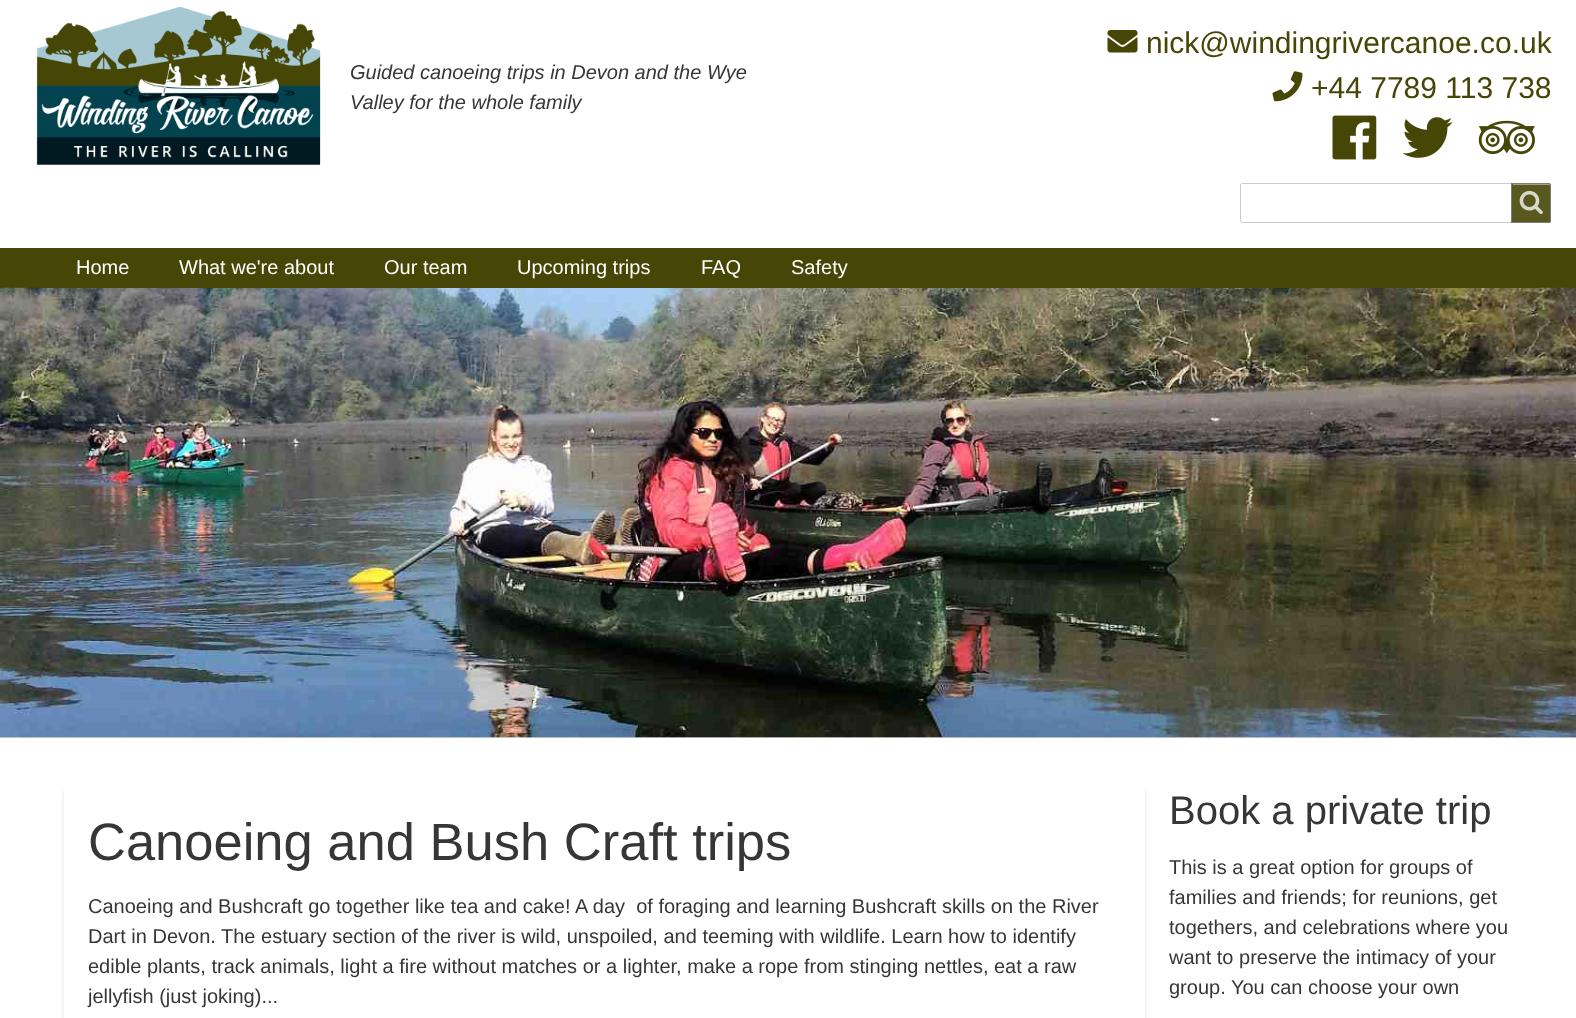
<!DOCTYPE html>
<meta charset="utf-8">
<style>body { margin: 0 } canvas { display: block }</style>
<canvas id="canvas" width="1576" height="1018"></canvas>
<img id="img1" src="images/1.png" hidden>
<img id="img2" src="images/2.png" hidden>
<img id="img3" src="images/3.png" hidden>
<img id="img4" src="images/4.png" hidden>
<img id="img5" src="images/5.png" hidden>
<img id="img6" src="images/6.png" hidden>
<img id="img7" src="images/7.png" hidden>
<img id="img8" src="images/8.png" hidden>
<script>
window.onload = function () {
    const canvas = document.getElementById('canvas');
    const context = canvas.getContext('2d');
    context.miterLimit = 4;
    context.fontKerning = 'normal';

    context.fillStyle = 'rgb(255, 255, 255)';
    context.fillRect(0, 0, 1576, 1018);
    context.drawImage(document.getElementById('img1'), 36, 6, 285, 159);
    context.drawImage(document.getElementById('img2'), 1107, 30, 31, 23);
    context.drawImage(document.getElementById('img3'), 1272, 71, 31, 31);
    context.drawImage(document.getElementById('img4'), 1332, 115, 45, 45);
    context.drawImage(document.getElementById('img5'), 1402, 117, 51, 41);
    context.drawImage(document.getElementById('img6'), 1478, 120, 57, 35);
    context.beginPath();
    context.roundRect(1240.5, 183.5, 310, 39, 2);
    context.strokeStyle = 'rgb(204, 204, 204)';
    context.stroke();
    context.fillStyle = 'rgba(70, 70, 7, 0.9)';
    context.beginPath();
    context.roundRect(1511, 183, 40, 40, [0, 2.5, 2.5, 0]);
    context.fill();
    context.drawImage(document.getElementById('img7'), 1519, 190, 24, 25);
    context.fillStyle = 'rgb(163, 163, 132)';
    context.beginPath();
    context.moveTo(1513, 184);
    context.lineTo(1513, 185);
    context.lineTo(1549, 185);
    context.lineTo(1550, 186);
    context.bezierCurveTo(1550, 185, 1550, 184, 1549, 184);
    context.closePath();
    context.fill();
    context.beginPath();
    context.roundRect(1511.5, 183.5, 39, 39, [0, 2, 2, 0]);
    context.strokeStyle = 'rgba(130, 130, 130, 0.9)';
    context.stroke();
    context.fillStyle = 'rgb(70, 70, 7)';
    context.fillRect(0, 248, 1576, 40);
    context.fillStyle = 'rgb(211, 211, 211)';
    context.fillRect(0, 737, 1576, 1);
    context.drawImage(document.getElementById('img8'), 0, 287, 1576, 451);
    context.fillStyle = 'rgb(70, 70, 7)';
    context.fillRect(39, 287, 1500, 1);
    context.save();
    context.beginPath();
    context.moveTo(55, 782);
    context.lineTo(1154, 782);
    context.lineTo(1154, 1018);
    context.lineTo(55, 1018);
    context.closePath();
    context.moveTo(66.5, 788);
    context.lineTo(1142.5, 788);
    context.bezierCurveTo(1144, 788, 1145, 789, 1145, 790.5);
    context.lineTo(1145, 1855.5);
    context.bezierCurveTo(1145, 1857, 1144, 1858, 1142.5, 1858);
    context.lineTo(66.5, 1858);
    context.bezierCurveTo(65, 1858, 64, 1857, 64, 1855.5);
    context.lineTo(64, 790.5);
    context.bezierCurveTo(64, 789, 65, 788, 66.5, 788);
    context.closePath();
    context.clip('evenodd');
    context.fillStyle = 'rgba(0, 0, 0, 0.1)';
    context.filter = 'blur(2.5px)';
    context.beginPath();
    context.roundRect(64, 791, 1081, 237, 2.5);
    context.fill();
    context.filter = 'none';
    context.restore();
    context.font = 'italic 20px Liberation Sans';
    context.fillStyle = 'rgb(54, 54, 54)';
    context.fillText('Guided canoeing trips in Devon and the Wye', 350, 79);
    context.fillText('Valley for the whole family', 350, 109);
    context.font = '30px Liberation Sans';
    context.fillStyle = 'rgb(70, 70, 7)';
    context.fillText('nick@windingrivercanoe.co.uk', 1146, 53);
    context.fillText('+44 7789 113 738', 1311, 98);
    context.font = '20px Liberation Sans';
    context.fillStyle = 'rgb(255, 255, 255)';
    context.fillText('Home', 76, 274);
    context.fillText('What we\'re about', 179, 274);
    context.fillText('Our team', 384, 274);
    context.fillText('Upcoming trips', 517, 274);
    context.fillText('FAQ', 701, 274);
    context.fillText('Safety', 791, 274);
    context.font = '52.5px Liberation Sans';
    context.fillStyle = 'rgb(54, 54, 54)';
    context.fillText('Canoeing and Bush Craft trips', 88, 860);
    context.font = '20px Liberation Sans';
    context.fillText('Canoeing and Bushcraft go together like tea and cake! A day  of foraging and learning Bushcraft skills on the River', 88, 913);
    context.fillText('Dart in Devon. The estuary section of the river is wild, unspoiled, and teeming with wildlife. Learn how to identify', 88, 943);
    context.fillText('edible plants, track animals, light a fire without matches or a lighter, make a rope from stinging nettles, eat a raw', 88, 973);
    context.fillText('jellyfish (just joking)...', 88, 1003);
    context.font = '40px Liberation Sans';
    context.fillText('Book a private trip', 1169, 824);
    context.font = '20px Liberation Sans';
    context.fillText('This is a great option for groups of', 1169, 874);
    context.fillText('families and friends; for reunions, get', 1169, 904);
    context.fillText('togethers, and celebrations where you', 1169, 934);
    context.fillText('want to preserve the intimacy of your', 1169, 964);
    context.fillText('group. You can choose your own', 1169, 994);
};
</script>
